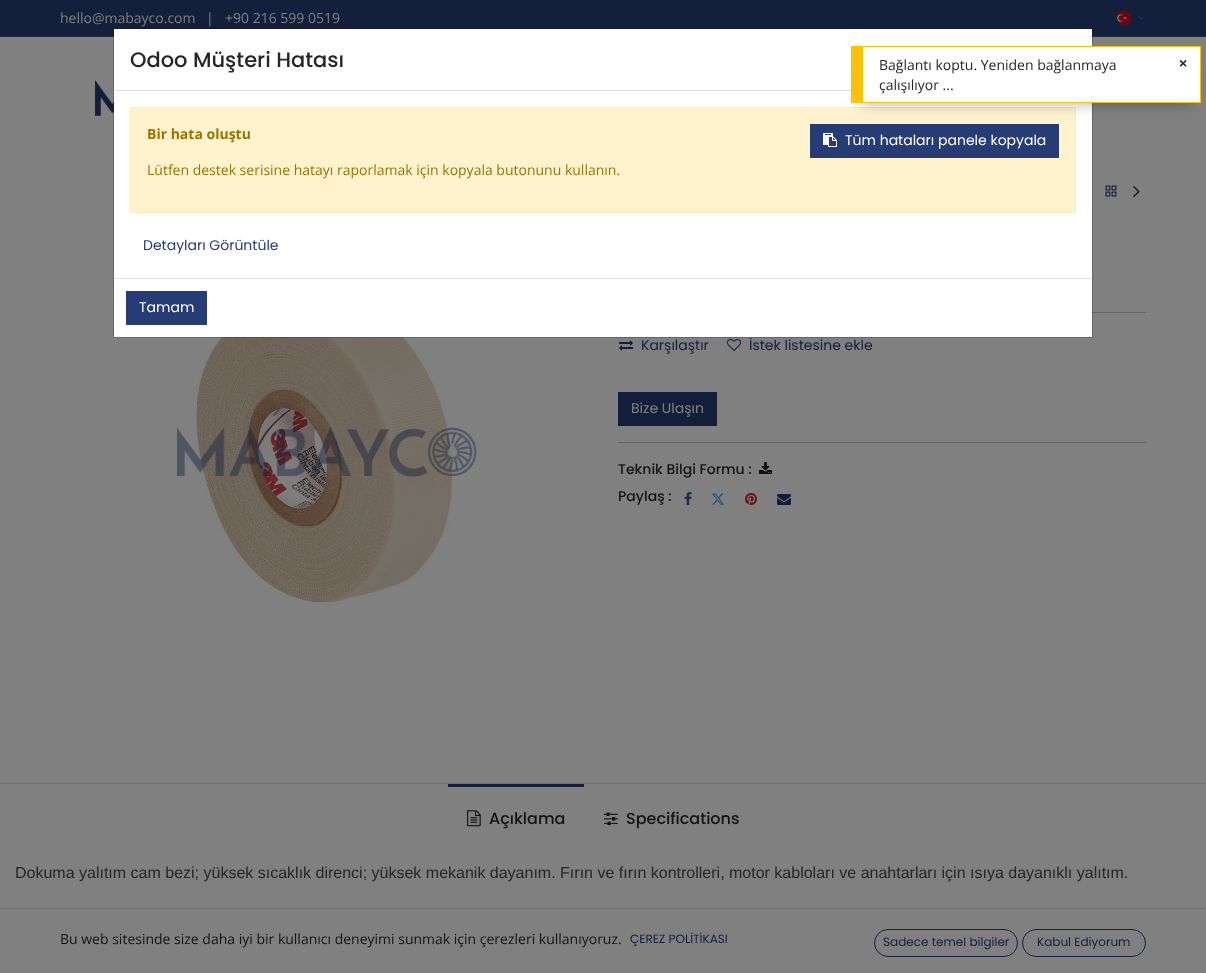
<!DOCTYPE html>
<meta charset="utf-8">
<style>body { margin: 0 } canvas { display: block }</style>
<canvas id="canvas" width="1206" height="973"></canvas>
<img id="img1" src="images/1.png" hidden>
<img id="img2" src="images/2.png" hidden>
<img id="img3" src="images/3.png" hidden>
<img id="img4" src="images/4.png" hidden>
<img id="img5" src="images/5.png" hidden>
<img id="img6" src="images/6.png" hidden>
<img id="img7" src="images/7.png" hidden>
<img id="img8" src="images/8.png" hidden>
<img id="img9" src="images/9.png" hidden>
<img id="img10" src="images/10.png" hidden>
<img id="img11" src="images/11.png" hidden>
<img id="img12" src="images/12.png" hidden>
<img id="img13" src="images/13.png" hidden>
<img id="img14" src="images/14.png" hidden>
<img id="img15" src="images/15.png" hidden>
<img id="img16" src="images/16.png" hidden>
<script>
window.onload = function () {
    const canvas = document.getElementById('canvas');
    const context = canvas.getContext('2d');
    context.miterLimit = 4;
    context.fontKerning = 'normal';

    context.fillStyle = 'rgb(128, 128, 128)';
    context.fillRect(0, 0, 1206, 973);
    context.fillStyle = 'rgb(19, 31, 59)';
    context.fillRect(0, 0, 1206, 36);
    context.fillStyle = 'rgb(32, 42, 67)';
    context.fillRect(0, 36, 1206, 1);
    context.drawImage(document.getElementById('img1'), 1117, 11, 14, 14);
    context.drawImage(document.getElementById('img2'), 1137, 15, 9, 5);
    context.drawImage(document.getElementById('img3'), 95, 79, 19, 37);
    context.drawImage(document.getElementById('img4'), 176, 337, 301, 266);
    context.drawImage(document.getElementById('img5'), 1105, 185, 12, 12);
    context.drawImage(document.getElementById('img6'), 1133, 186, 7, 12);
    context.fillStyle = 'rgb(100, 101, 101)';
    context.fillRect(1092, 312, 54, 1);
    context.drawImage(document.getElementById('img7'), 619, 340, 14, 11);
    context.drawImage(document.getElementById('img8'), 727, 339, 14, 12);
    context.fillStyle = 'rgb(19, 30, 58)';
    context.fillRect(618, 392, 99, 34);
    context.fillStyle = 'rgb(100, 101, 101)';
    context.fillRect(618, 442, 528, 1);
    context.drawImage(document.getElementById('img9'), 759, 462, 13, 12);
    context.drawImage(document.getElementById('img10'), 684, 492, 8, 13);
    context.drawImage(document.getElementById('img11'), 711, 493, 14, 12);
    context.drawImage(document.getElementById('img12'), 745, 493, 12, 12);
    context.drawImage(document.getElementById('img13'), 777, 494, 14, 11);
    context.fillStyle = 'rgb(111, 113, 115)';
    context.fillRect(0, 783, 1206, 1);
    context.fillStyle = 'rgb(19, 30, 58)';
    context.fillRect(448, 784, 136, 3);
    context.drawImage(document.getElementById('img14'), 467, 810, 14, 17);
    context.drawImage(document.getElementById('img15'), 604, 812, 14, 14);
    context.fillStyle = 'rgb(111, 113, 115)';
    context.fillRect(0, 908, 1206, 1);
    context.beginPath();
    context.roundRect(874.5, 929.5, 143, 27, 13.5);
    context.strokeStyle = 'rgb(19, 30, 58)';
    context.stroke();
    context.beginPath();
    context.roundRect(1022.5, 929.5, 123, 27, 13.5);
    context.stroke();
    context.fillStyle = 'rgb(255, 255, 255)';
    context.fillRect(114, 29, 978, 308);
    context.font = '14px Open Sans';
    context.fillStyle = 'rgb(128, 128, 128)';
    context.fillText('hello@mabayco.com', 60, 23);
    context.fillText('|', 206, 23);
    context.fillText('+90 216 599 0519', 225, 23);
    context.font = '14px Poppins';
    context.fillStyle = 'rgb(19, 30, 58)';
    context.fillText('Karşılaştır', 641, 350);
    context.fillText('İstek listesine ekle', 749, 350);
    context.fillStyle = 'rgb(128, 128, 128)';
    context.fillText('Bize Ulaşın', 631, 413);
    context.font = '500 14px Poppins';
    context.fillStyle = 'rgb(17, 19, 21)';
    context.fillText('Teknik Bilgi Formu :', 618, 474);
    context.fillText('Paylaş :', 618, 501);
    context.font = '500 16px Poppins';
    context.fillText('Açıklama', 489, 824);
    context.fillText('Specifications', 626, 824);
    context.font = '16px Liberation Sans';
    context.fillStyle = 'rgb(38, 38, 38)';
    context.fillText('Dokuma yalıtım cam bezi; yüksek sıcaklık direnci; yüksek mekanik dayanım. Fırın ve fırın kontrolleri, motor kabloları ve anahtarları için ısıya dayanıklı yalıtım.', 15, 878);
    context.font = '14px Open Sans';
    context.fillStyle = 'rgb(17, 19, 21)';
    context.fillText('Bu web sitesinde size daha iyi bir kullanıcı deneyimi sunmak için çerezleri kullanıyoruz.', 60, 944);
    context.font = '12px Poppins';
    context.fillStyle = 'rgb(19, 30, 58)';
    context.fillText('ÇEREZ POLİTİKASI', 630, 943);
    context.fillText('Sadece temel bilgiler', 883, 946);
    context.fillText('Kabul Ediyorum', 1037, 946);
    context.strokeStyle = 'rgba(0, 0, 0, 0.2)';
    context.strokeRect(113.5, 28.5, 979, 309);
    context.fillStyle = 'rgb(222, 226, 230)';
    context.fillRect(114, 90, 737, 1);
    context.font = '500 21px Poppins';
    context.fillStyle = 'rgb(38, 38, 38)';
    context.fillText('Odoo Müşteri Hatası', 130, 67);
    context.fillStyle = 'rgb(255, 243, 205)';
    context.beginPath();
    context.rect(130.5, 107.5, 945, 105);
    context.fill();
    context.strokeStyle = 'rgb(255, 236, 181)';
    context.stroke();
    context.font = 'bold 14px Open Sans';
    context.fillStyle = 'rgb(153, 116, 4)';
    context.fillText('Bir hata oluştu', 147, 139);
    context.fillStyle = 'rgb(38, 60, 116)';
    context.fillRect(810, 124, 249, 34);
    context.drawImage(document.getElementById('img16'), 823, 133, 14, 14);
    context.font = '14px Poppins';
    context.fillStyle = 'rgb(255, 255, 255)';
    context.fillText('Tüm hataları panele kopyala', 845, 145);
    context.font = '14px Open Sans';
    context.fillStyle = 'rgb(153, 116, 4)';
    context.fillText('Lütfen destek serisine hatayı raporlamak için kopyala butonunu kullanın.', 147, 175);
    context.font = '14px Poppins';
    context.fillStyle = 'rgb(38, 60, 116)';
    context.fillText('Detayları Görüntüle', 143, 250);
    context.fillStyle = 'rgb(222, 226, 230)';
    context.fillRect(114, 278, 978, 1);
    context.fillStyle = 'rgb(38, 60, 116)';
    context.fillRect(126, 291, 81, 34);
    context.fillStyle = 'rgb(255, 255, 255)';
    context.fillText('Tamam', 139, 312);
    context.fillStyle = 'rgba(0, 0, 0, 0.25)';
    context.filter = 'blur(7px)';
    context.beginPath();
    context.rect(861, 68, 330, 37);
    context.fill();
    context.filter = 'none';
    context.fillStyle = 'rgb(255, 255, 255)';
    context.fillRect(863, 47, 337, 55);
    context.fillStyle = 'rgb(255, 193, 7)';
    context.fillRect(863, 46, 338, 1);
    context.fillRect(1200, 46, 1, 57);
    context.fillRect(863, 102, 338, 1);
    context.fillRect(851, 46, 12, 57);
    context.font = '14px Open Sans';
    context.fillStyle = 'rgb(38, 38, 38)';
    context.fillText('Bağlantı koptu. Yeniden bağlanmaya', 879, 70);
    context.fillText('çalışılıyor ...', 879, 90);
    context.font = 'bold 14px Liberation Sans';
    context.fillText('×', 1179, 68);
};
</script>
